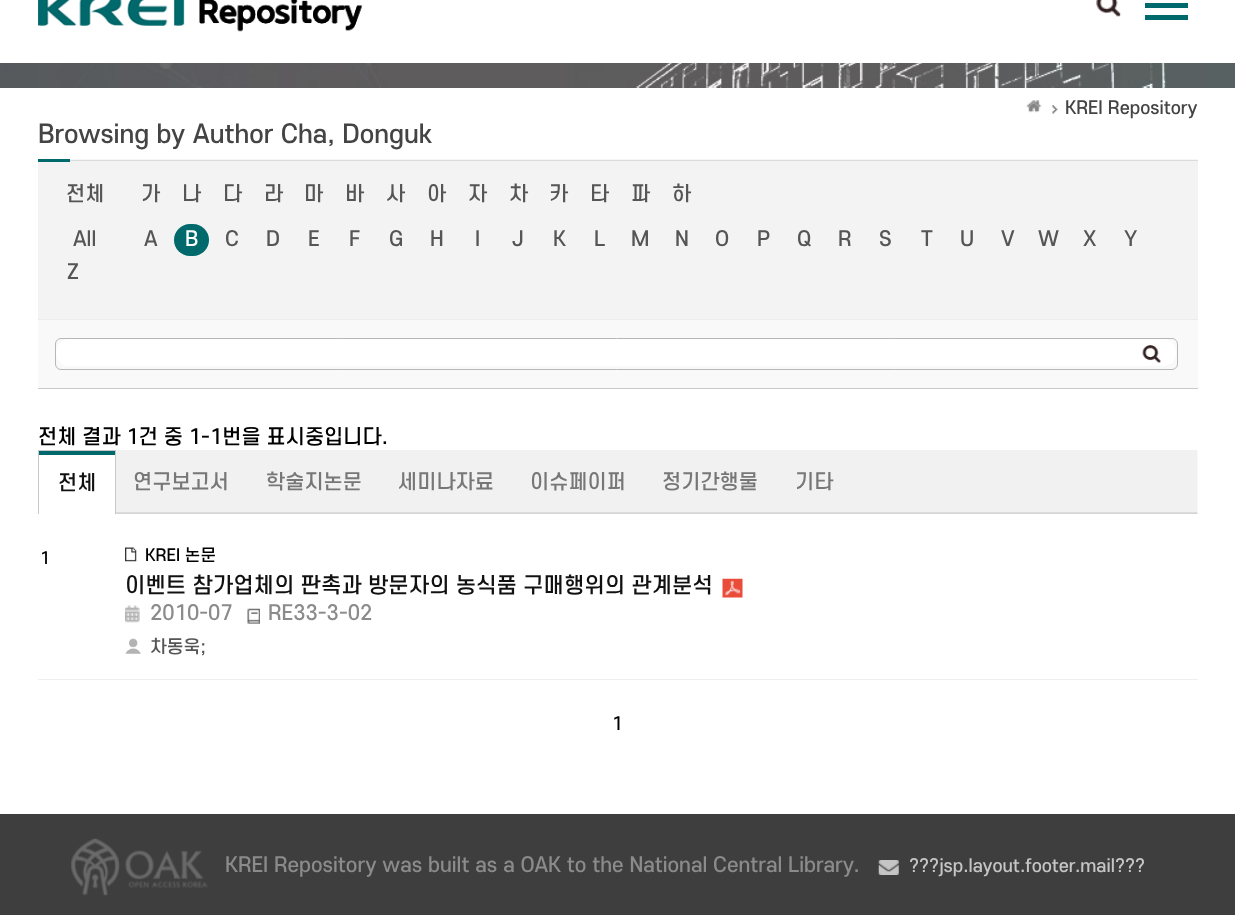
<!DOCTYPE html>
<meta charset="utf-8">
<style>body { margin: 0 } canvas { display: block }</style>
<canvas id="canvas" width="1235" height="915"></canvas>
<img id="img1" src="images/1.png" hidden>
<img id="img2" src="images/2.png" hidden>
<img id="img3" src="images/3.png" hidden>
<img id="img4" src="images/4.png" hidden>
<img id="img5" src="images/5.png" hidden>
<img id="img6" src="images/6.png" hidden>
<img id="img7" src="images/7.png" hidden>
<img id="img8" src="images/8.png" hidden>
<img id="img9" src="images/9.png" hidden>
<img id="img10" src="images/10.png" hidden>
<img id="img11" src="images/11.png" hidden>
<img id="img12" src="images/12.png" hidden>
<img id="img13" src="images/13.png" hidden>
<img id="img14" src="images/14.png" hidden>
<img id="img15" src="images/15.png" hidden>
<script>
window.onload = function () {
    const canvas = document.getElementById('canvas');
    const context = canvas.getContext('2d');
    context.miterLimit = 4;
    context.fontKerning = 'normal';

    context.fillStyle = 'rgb(255, 255, 255)';
    context.fillRect(0, 0, 1235, 915);
    context.drawImage(document.getElementById('img1'), 38, 0, 325, 32);
    context.drawImage(document.getElementById('img2'), 1096, 0, 25, 17);
    context.fillStyle = 'rgb(0, 105, 108)';
    context.fillRect(1145, 3, 43, 5);
    context.fillRect(1145, 15, 43, 5);
    context.drawImage(document.getElementById('img3'), 0, 63, 1235, 25);
    context.drawImage(document.getElementById('img4'), 1026, 100, 16, 13);
    context.drawImage(document.getElementById('img5'), 1052, 105, 6, 9);
    context.drawImage(document.getElementById('img6'), 70, 159, 1128, 2);
    context.fillStyle = 'rgb(243, 243, 243)';
    context.fillRect(38, 161, 1160, 158);
    context.fillStyle = 'rgb(0, 105, 108)';
    context.fillRect(38, 159, 32, 3);
    context.fillStyle = 'rgb(201, 201, 201)';
    context.fillRect(38, 388, 1160, 1);
    context.fillStyle = 'rgb(0, 105, 108)';
    context.beginPath();
    context.roundRect(174, 224, 35, 32, 16);
    context.fill();
    context.fillStyle = 'rgb(249, 249, 249)';
    context.fillRect(38, 320, 1160, 68);
    context.fillStyle = 'rgb(236, 236, 236)';
    context.fillRect(38, 319, 1160, 1);
    context.beginPath();
    context.roundRect(55.5, 338.5, 1122, 31, 5.5);
    context.strokeStyle = 'rgb(183, 183, 183)';
    context.stroke();
    context.fillStyle = 'rgb(255, 255, 255)';
    context.beginPath();
    context.roundRect(56, 339, 1120, 27, 13);
    context.fill();
    context.drawImage(document.getElementById('img7'), 1142, 345, 19, 18);
    context.drawImage(document.getElementById('img8'), 116, 450, 1082, 64);
    context.fillStyle = 'rgb(199, 199, 199)';
    context.fillRect(38, 450, 78, 1);
    context.fillRect(115, 450, 1, 64);
    context.fillRect(38, 450, 1, 64);
    context.fillStyle = 'rgb(0, 105, 108)';
    context.fillRect(39, 451, 76, 4);
    context.fillStyle = 'rgb(239, 239, 239)';
    context.fillRect(38, 679, 1160, 1);
    context.drawImage(document.getElementById('img9'), 125, 547, 12, 15);
    context.drawImage(document.getElementById('img10'), 722, 578, 21, 20);
    context.drawImage(document.getElementById('img11'), 125, 605, 15, 18);
    context.drawImage(document.getElementById('img12'), 247, 608, 13, 16);
    context.drawImage(document.getElementById('img13'), 125, 638, 16, 16);
    context.fillStyle = 'rgb(62, 62, 62)';
    context.fillRect(0, 814, 1235, 101);
    context.drawImage(document.getElementById('img14'), 71, 838, 137, 58);
    context.drawImage(document.getElementById('img15'), 878, 860, 21, 15);
    context.font = '500 17.5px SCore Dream';
    context.fillStyle = 'rgb(68, 68, 68)';
    context.fillText('KREI Repository', 1065, 114);
    context.font = '500 25px SCore Dream';
    context.fillText('Browsing by Author Cha, Donguk', 38, 143);
    context.font = '500 20px SCore Dream';
    context.fillStyle = 'rgb(85, 85, 85)';
    context.fillText('전체', 66, 201);
    context.fillText('가', 141, 201);
    context.fillText('나', 182, 201);
    context.fillText('다', 223, 201);
    context.fillText('라', 264, 201);
    context.fillText('마', 304, 201);
    context.fillText('바', 345, 201);
    context.fillText('사', 386, 201);
    context.fillText('아', 427, 201);
    context.fillText('자', 468, 201);
    context.fillText('차', 509, 201);
    context.fillText('카', 549, 201);
    context.fillText('타', 590, 201);
    context.fillText('파', 631, 201);
    context.fillText('하', 672, 201);
    context.fillText('All', 73, 246);
    context.fillText('A', 144, 246);
    context.fillStyle = 'rgb(255, 255, 255)';
    context.fillText('B', 185, 246);
    context.fillStyle = 'rgb(85, 85, 85)';
    context.fillText('C', 225, 246);
    context.fillText('D', 266, 246);
    context.fillText('E', 308, 246);
    context.fillText('F', 349, 246);
    context.fillText('G', 389, 246);
    context.fillText('H', 430, 246);
    context.fillText('I', 475, 246);
    context.fillText('J', 512, 246);
    context.fillText('K', 553, 246);
    context.fillText('L', 594, 246);
    context.fillText('M', 631, 246);
    context.fillText('N', 675, 246);
    context.fillText('O', 715, 246);
    context.fillText('P', 757, 246);
    context.fillText('Q', 797, 246);
    context.fillText('R', 838, 246);
    context.fillText('S', 879, 246);
    context.fillText('T', 921, 246);
    context.fillText('U', 960, 246);
    context.fillText('V', 1001, 246);
    context.fillText('W', 1038, 246);
    context.fillText('X', 1083, 246);
    context.fillText('Y', 1124, 246);
    context.fillText('Z', 67, 279);
    context.fillStyle = 'rgb(0, 0, 0)';
    context.fillText('전체 결과 1건 중 1-1번을 표시중입니다.', 38, 444);
    context.fillStyle = 'rgb(17, 17, 17)';
    context.fillText('전체', 58, 490);
    context.fillStyle = 'rgb(119, 119, 119)';
    context.fillText('연구보고서', 133, 489);
    context.fillText('학술지논문', 266, 489);
    context.fillText('세미나자료', 398, 489);
    context.fillText('이슈페이퍼', 530, 489);
    context.fillText('정기간행물', 662, 489);
    context.fillText('기타', 795, 489);
    context.font = '500 16.25px SCore Dream';
    context.fillStyle = 'rgb(0, 0, 0)';
    context.fillText('1', 40, 564);
    context.fillText('KREI 논문', 145, 561);
    context.font = '500 21.25px SCore Dream';
    context.fillStyle = 'rgb(17, 17, 17)';
    context.fillText('이벤트 참가업체의 판촉과 방문자의 농식품 구매행위의 관계분석', 125, 593);
    context.font = '500 20px SCore Dream';
    context.fillStyle = 'rgb(139, 139, 139)';
    context.fillText('2010-07', 150, 620);
    context.fillText('RE33-3-02', 268, 620);
    context.font = '500 17.5px SCore Dream';
    context.fillStyle = 'rgb(85, 85, 85)';
    context.fillText('차동욱;', 150, 653);
    context.fillStyle = 'rgb(0, 0, 0)';
    context.fillText('1', 612, 730);
    context.font = '500 20px SCore Dream';
    context.fillStyle = 'rgb(139, 139, 139)';
    context.fillText('KREI Repository was built as a OAK to the National Central Library.', 225, 872);
    context.font = '500 17.5px SCore Dream';
    context.fillStyle = 'rgb(197, 197, 197)';
    context.fillText('???jsp.layout.footer.mail???', 909, 872);
};
</script>
